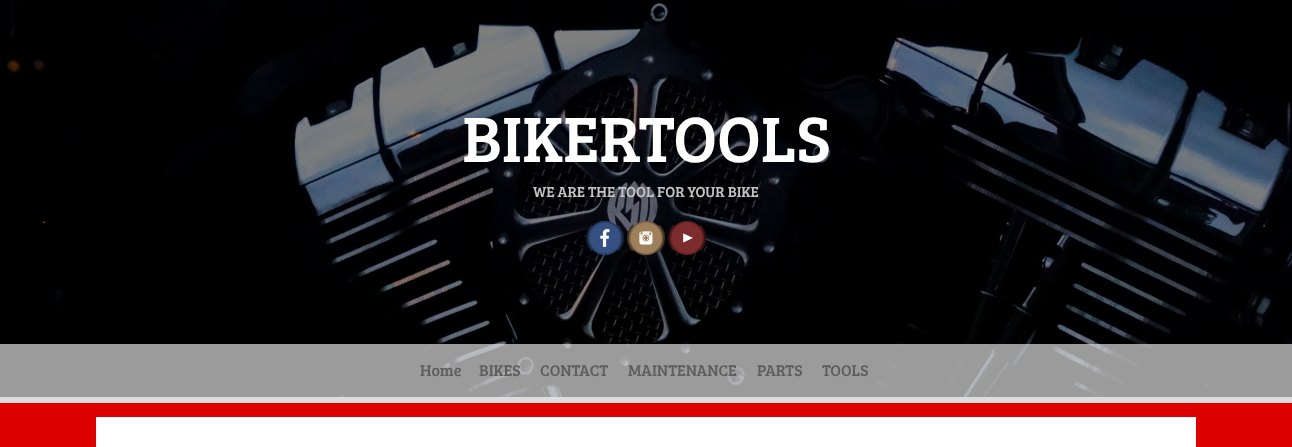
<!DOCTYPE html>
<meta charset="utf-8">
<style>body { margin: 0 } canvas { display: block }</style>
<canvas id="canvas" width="1292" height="447"></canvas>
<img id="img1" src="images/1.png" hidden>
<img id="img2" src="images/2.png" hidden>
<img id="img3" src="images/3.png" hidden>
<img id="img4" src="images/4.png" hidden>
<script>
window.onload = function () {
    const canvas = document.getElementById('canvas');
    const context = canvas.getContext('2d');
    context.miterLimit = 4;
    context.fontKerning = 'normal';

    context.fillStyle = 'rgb(221, 0, 0)';
    context.fillRect(0, 0, 1292, 447);
    context.drawImage(document.getElementById('img1'), 0, 0, 1292, 397);
    context.drawImage(document.getElementById('img2'), 586, 221, 38, 35);
    context.drawImage(document.getElementById('img3'), 627, 221, 38, 35);
    context.drawImage(document.getElementById('img4'), 668, 221, 38, 34);
    context.fillStyle = 'rgba(221, 221, 221, 0.7)';
    context.fillRect(0, 344, 1292, 53);
    context.fillStyle = 'rgb(221, 221, 221)';
    context.fillRect(0, 397, 1292, 6);
    context.fillStyle = 'rgb(255, 255, 255)';
    context.fillRect(96, 417, 1100, 30);
    context.font = '66px Bree Serif';
    context.fillText('BIKERTOOLS', 462, 162);
    context.font = '15px Bree Serif';
    context.fillStyle = 'rgb(196, 196, 196)';
    context.fillText('WE ARE THE TOOL FOR YOUR BIKE', 533, 197);
    context.font = '16px Bree Serif';
    context.fillStyle = 'rgb(94, 94, 94)';
    context.fillText('Home', 420, 376);
    context.fillText('BIKES', 479, 376);
    context.fillText('CONTACT', 540, 376);
    context.fillText('MAINTENANCE', 628, 376);
    context.fillText('PARTS', 757, 376);
    context.fillText('TOOLS', 822, 376);
};
</script>
